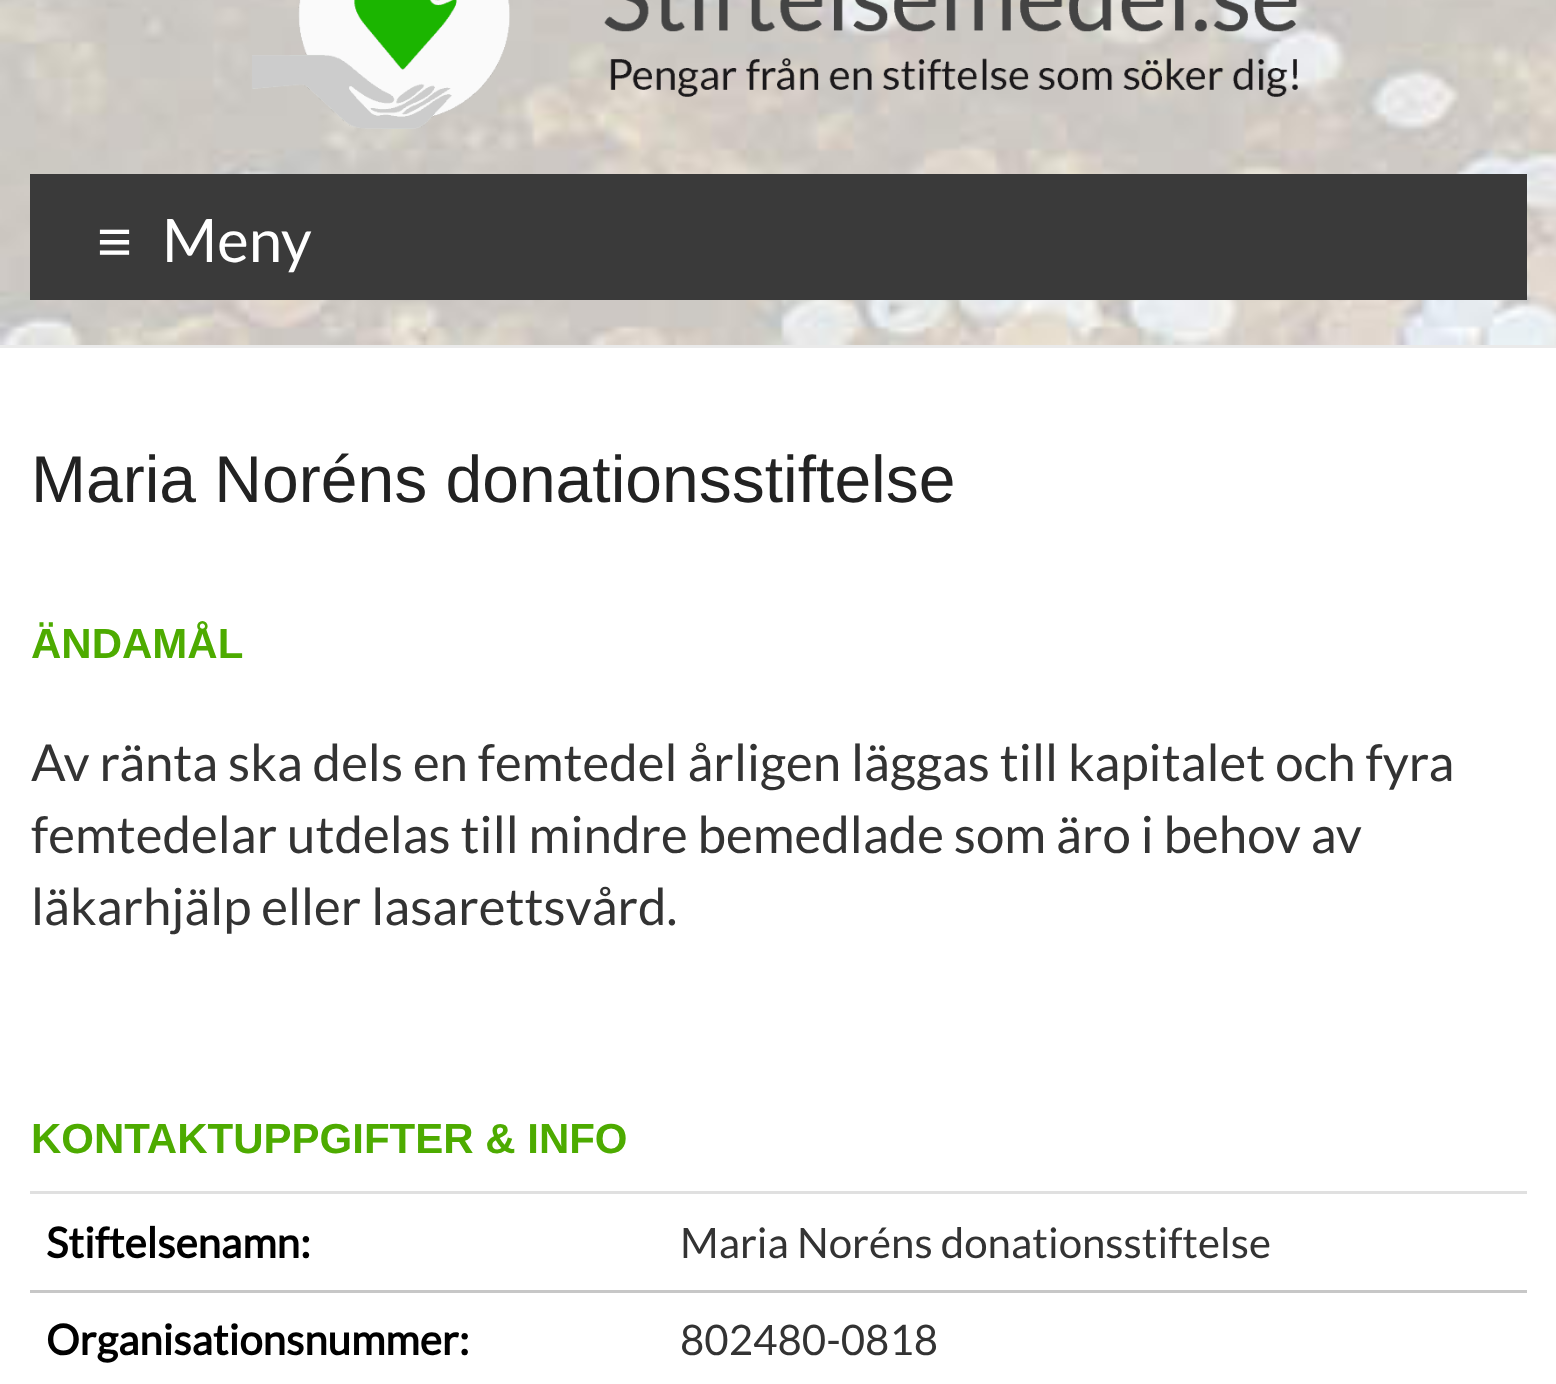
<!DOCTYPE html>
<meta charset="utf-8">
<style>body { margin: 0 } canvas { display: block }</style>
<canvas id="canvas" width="1556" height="1384"></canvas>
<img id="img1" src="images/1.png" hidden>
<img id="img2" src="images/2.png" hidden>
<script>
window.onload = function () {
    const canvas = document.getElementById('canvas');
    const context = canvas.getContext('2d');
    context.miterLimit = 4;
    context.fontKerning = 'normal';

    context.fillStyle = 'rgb(255, 255, 255)';
    context.fillRect(0, 0, 1556, 1384);
    context.drawImage(document.getElementById('img1'), 0, 0, 1556, 345);
    context.fillStyle = 'rgb(234, 234, 234)';
    context.fillRect(0, 345, 1556, 3);
    context.drawImage(document.getElementById('img2'), 252, 0, 1046, 129);
    context.fillStyle = 'rgb(58, 58, 58)';
    context.fillRect(30, 174, 1497, 126);
    context.fillStyle = 'rgb(224, 224, 224)';
    context.fillRect(30, 1191, 1497, 3);
    context.fillStyle = 'rgb(199, 199, 199)';
    context.fillRect(30, 1290, 1497, 3);
    context.font = '60px Liberation Sans';
    context.fillStyle = 'rgb(255, 255, 255)';
    context.fillText('≡', 97, 262);
    context.font = '60px Lato';
    context.fillText('Meny', 162, 262);
    context.font = '66px Liberation Sans';
    context.fillStyle = 'rgb(34, 34, 34)';
    context.fillText('Maria Noréns donationsstiftelse', 31, 502);
    context.font = 'bold 42px Liberation Sans';
    context.fillStyle = 'rgb(77, 171, 0)';
    context.fillText('ÄNDAMÅL', 31, 658);
    context.font = '51px Lato';
    context.fillStyle = 'rgb(51, 51, 51)';
    context.fillText('Av ränta ska dels en femtedel årligen läggas till kapitalet och fyra', 31, 781);
    context.fillText('femtedelar utdelas till mindre bemedlade som äro i behov av', 31, 853);
    context.fillText('läkarhjälp eller lasarettsvård.', 31, 925);
    context.font = 'bold 42px Liberation Sans';
    context.fillStyle = 'rgb(77, 171, 0)';
    context.fillText('KONTAKTUPPGIFTER & INFO', 31, 1153);
    context.font = 'bold 42px Lato';
    context.fillStyle = 'rgb(0, 0, 0)';
    context.fillText('Stiftelsenamn:', 46, 1258);
    context.font = '42px Lato';
    context.fillStyle = 'rgb(51, 51, 51)';
    context.fillText('Maria Noréns donationsstiftelse', 680, 1258);
    context.font = 'bold 42px Lato';
    context.fillStyle = 'rgb(0, 0, 0)';
    context.fillText('Organisationsnummer:', 46, 1355);
    context.font = '42px Lato';
    context.fillStyle = 'rgb(51, 51, 51)';
    context.fillText('802480-0818', 680, 1355);
};
</script>
